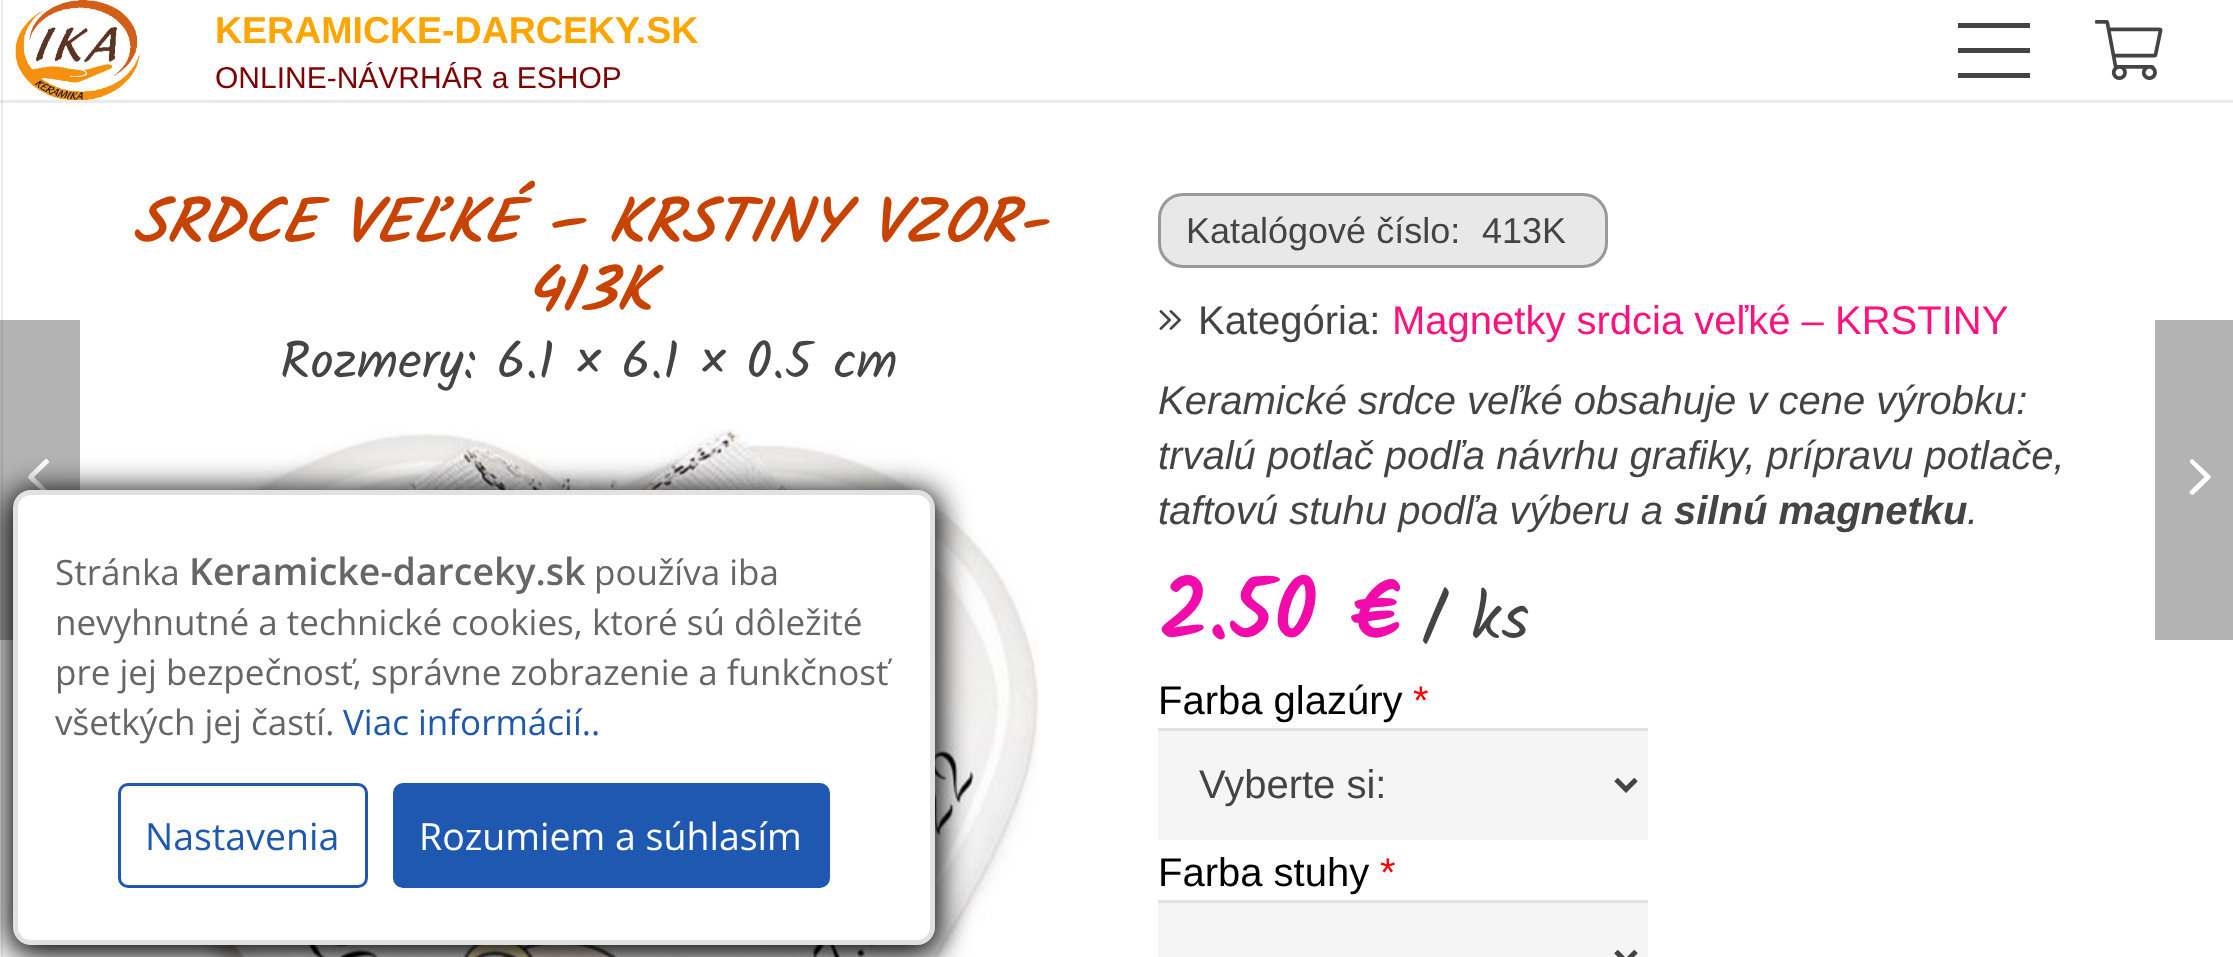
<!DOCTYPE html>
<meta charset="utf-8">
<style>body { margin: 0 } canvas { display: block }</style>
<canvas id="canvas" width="2233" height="957"></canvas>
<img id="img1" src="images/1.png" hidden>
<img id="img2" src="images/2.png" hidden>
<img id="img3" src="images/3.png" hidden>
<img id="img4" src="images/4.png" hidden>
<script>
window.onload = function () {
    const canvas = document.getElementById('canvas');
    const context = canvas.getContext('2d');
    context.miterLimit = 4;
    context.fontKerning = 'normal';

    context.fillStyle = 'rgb(255, 255, 255)';
    context.fillRect(0, 0, 2233, 957);
    context.fillStyle = 'rgb(235, 235, 235)';
    context.fillRect(0, 100, 2233, 3);
    context.fillStyle = 'rgb(179, 179, 179)';
    context.fillRect(0, 320, 80, 320);
    context.fillStyle = 'rgba(0, 0, 0, 0.08)';
    context.beginPath();
    context.moveTo(-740, 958);
    context.lineTo(3, 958);
    context.lineTo(3, 0);
    context.lineTo(1, 0);
    context.lineTo(1, 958);
    context.closePath();
    context.fill();
    context.fillStyle = 'rgb(68, 68, 68)';
    context.fillRect(1958, 48, 72, 5);
    context.fillRect(1958, 23, 72, 5);
    context.fillRect(1958, 73, 72, 5);
    context.drawImage(document.getElementById('img1'), 2095, 20, 68, 60);
    context.drawImage(document.getElementById('img2'), 15, 0, 125, 100);
    context.drawImage(document.getElementById('img3'), 117, 428, 922, 529);
    context.fillStyle = 'rgb(232, 232, 232)';
    context.beginPath();
    context.roundRect(1159.5, 194.5, 447, 72, 23.5);
    context.fill();
    context.strokeStyle = 'rgb(153, 153, 153)';
    context.lineWidth = 3;
    context.stroke();
    context.drawImage(document.getElementById('img4'), 1159, 310, 23, 20);
    context.fillStyle = 'rgb(245, 245, 245)';
    context.fillRect(1158, 731, 490, 109);
    context.fillStyle = 'rgb(225, 225, 225)';
    context.fillRect(1158, 728, 490, 3);
    context.beginPath();
    context.moveTo(1616, 779.5);
    context.lineTo(1626, 789.5);
    context.lineTo(1636, 779.5);
    context.strokeStyle = 'rgb(68, 68, 68)';
    context.lineWidth = 5;
    context.stroke();
    context.fillStyle = 'rgb(245, 245, 245)';
    context.fillRect(1158, 903, 490, 54);
    context.fillStyle = 'rgb(225, 225, 225)';
    context.fillRect(1158, 900, 490, 3);
    context.beginPath();
    context.moveTo(1616, 951.5);
    context.lineTo(1626, 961.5);
    context.lineTo(1636, 951.5);
    context.stroke();
    context.fillStyle = 'rgb(255, 255, 255)';
    context.beginPath();
    context.moveTo(45, 459.5);
    context.bezierCurveTo(46.5, 458, 49.5, 461, 49, 462.5);
    context.lineTo(34, 477);
    context.lineTo(48.5, 491.5);
    context.bezierCurveTo(49.5, 493, 47.5, 495.5, 46, 495);
    context.lineTo(31, 481);
    context.bezierCurveTo(27, 476.5, 27, 477.5, 31, 473);
    context.closePath();
    context.fill();
    context.fillStyle = 'rgb(179, 179, 179)';
    context.fillRect(2155, 320, 78, 320);
    context.fillStyle = 'rgb(255, 255, 255)';
    context.beginPath();
    context.moveTo(2193.5, 494.5);
    context.bezierCurveTo(2192, 496, 2189, 493, 2189.5, 491.5);
    context.lineTo(2204.5, 477);
    context.lineTo(2190, 462.5);
    context.bezierCurveTo(2189, 461, 2191.5, 458.5, 2192.5, 459);
    context.lineTo(2207.5, 473);
    context.bezierCurveTo(2212, 477.5, 2212, 476.5, 2207.5, 481);
    context.closePath();
    context.fill();
    context.fillStyle = 'rgb(0, 0, 0)';
    context.filter = 'blur(15px)';
    context.beginPath();
    context.roundRect(8, 490, 932, 465, 23);
    context.fill();
    context.filter = 'none';
    context.fillStyle = 'rgb(255, 255, 255)';
    context.beginPath();
    context.roundRect(15.5, 492.5, 917, 450, 15.5);
    context.fill();
    context.strokeStyle = 'rgb(225, 225, 225)';
    context.stroke();
    context.beginPath();
    context.roundRect(119.5, 784.5, 247, 102, 8.5);
    context.strokeStyle = 'rgb(30, 88, 177)';
    context.lineWidth = 3;
    context.stroke();
    context.fillStyle = 'rgb(30, 88, 177)';
    context.beginPath();
    context.roundRect(394.5, 784.5, 434, 102, 8.5);
    context.fill();
    context.stroke();
    context.font = 'bold 37.5px Liberation Sans';
    context.fillStyle = 'rgb(255, 165, 0)';
    context.fillText('KERAMICKE-DARCEKY.SK', 215, 43);
    context.font = '30px Liberation Sans';
    context.fillStyle = 'rgb(128, 0, 0)';
    context.fillText('ONLINE-NÁVRHÁR a ESHOP', 215, 88);
    context.font = 'italic bold 62.5px Kalam';
    context.fillStyle = 'rgb(200, 67, 2)';
    context.fillText('SRDCE VEĽKÉ – KRSTINY VZOR-', 132, 243);
    context.fillText('413K', 525, 311);
    context.font = '52px Kalam';
    context.fillStyle = 'rgb(68, 68, 68)';
    context.fillText('Rozmery: 6.1 × 6.1 × 0.5 cm', 280, 378);
    context.font = '36px Liberation Sans';
    context.fillText('Katalógové číslo:', 1186, 243);
    context.fillText('413K', 1482, 243);
    context.font = '40px Liberation Sans';
    context.fillText('Kategória:', 1198, 334);
    context.fillStyle = 'rgb(255, 18, 125)';
    context.fillText('Magnetky srdcia veľké – KRSTINY', 1392, 334);
    context.font = 'italic 40px Liberation Sans';
    context.fillStyle = 'rgb(68, 68, 68)';
    context.fillText('Keramické srdce veľké obsahuje v cene výrobku:', 1158, 414);
    context.fillText('trvalú potlač podľa návrhu grafiky, prípravu potlače,', 1158, 469);
    context.fillText('taftovú stuhu podľa výberu a', 1158, 524);
    context.font = 'italic bold 40px Liberation Sans';
    context.fillText('silnú magnetku', 1674, 524);
    context.font = 'italic 40px Liberation Sans';
    context.fillText('.', 1967, 524);
    context.font = 'bold 85px Kalam';
    context.fillStyle = 'rgb(241, 11, 170)';
    context.fillText('2.50 €', 1158, 639);
    context.font = '65px Kalam';
    context.fillStyle = 'rgb(68, 68, 68)';
    context.fillText('/ ks', 1422, 639);
    context.font = '40px Liberation Sans';
    context.fillStyle = 'rgb(0, 0, 0)';
    context.fillText('Farba glazúry', 1158, 714);
    context.fillStyle = 'rgb(255, 0, 0)';
    context.fillText('*', 1413, 714);
    context.fillStyle = 'rgb(68, 68, 68)';
    context.fillText('Vyberte si:', 1199, 798);
    context.fillStyle = 'rgb(0, 0, 0)';
    context.fillText('Farba stuhy', 1158, 886);
    context.fillStyle = 'rgb(255, 0, 0)';
    context.fillText('*', 1380, 886);
    context.font = '35px Open Sans';
    context.fillStyle = 'rgb(102, 102, 102)';
    context.fillText('Stránka', 55, 585);
    context.font = '600 37.5px Open Sans';
    context.fillText('Keramicke-darceky.sk', 189, 585);
    context.font = '35px Open Sans';
    context.fillText('používa iba', 594, 585);
    context.fillText('nevyhnutné a technické cookies, ktoré sú dôležité', 55, 635);
    context.fillText('pre jej bezpečnosť, správne zobrazenie a funkčnosť', 55, 685);
    context.fillText('všetkých jej častí.', 55, 735);
    context.fillStyle = 'rgb(30, 88, 177)';
    context.fillText('Viac informácií..', 343, 735);
    context.font = '37.5px Open Sans';
    context.fillText('Nastavenia', 145, 850);
    context.fillStyle = 'rgb(255, 255, 255)';
    context.fillText('Rozumiem a súhlasím', 419, 850);
};
</script>
